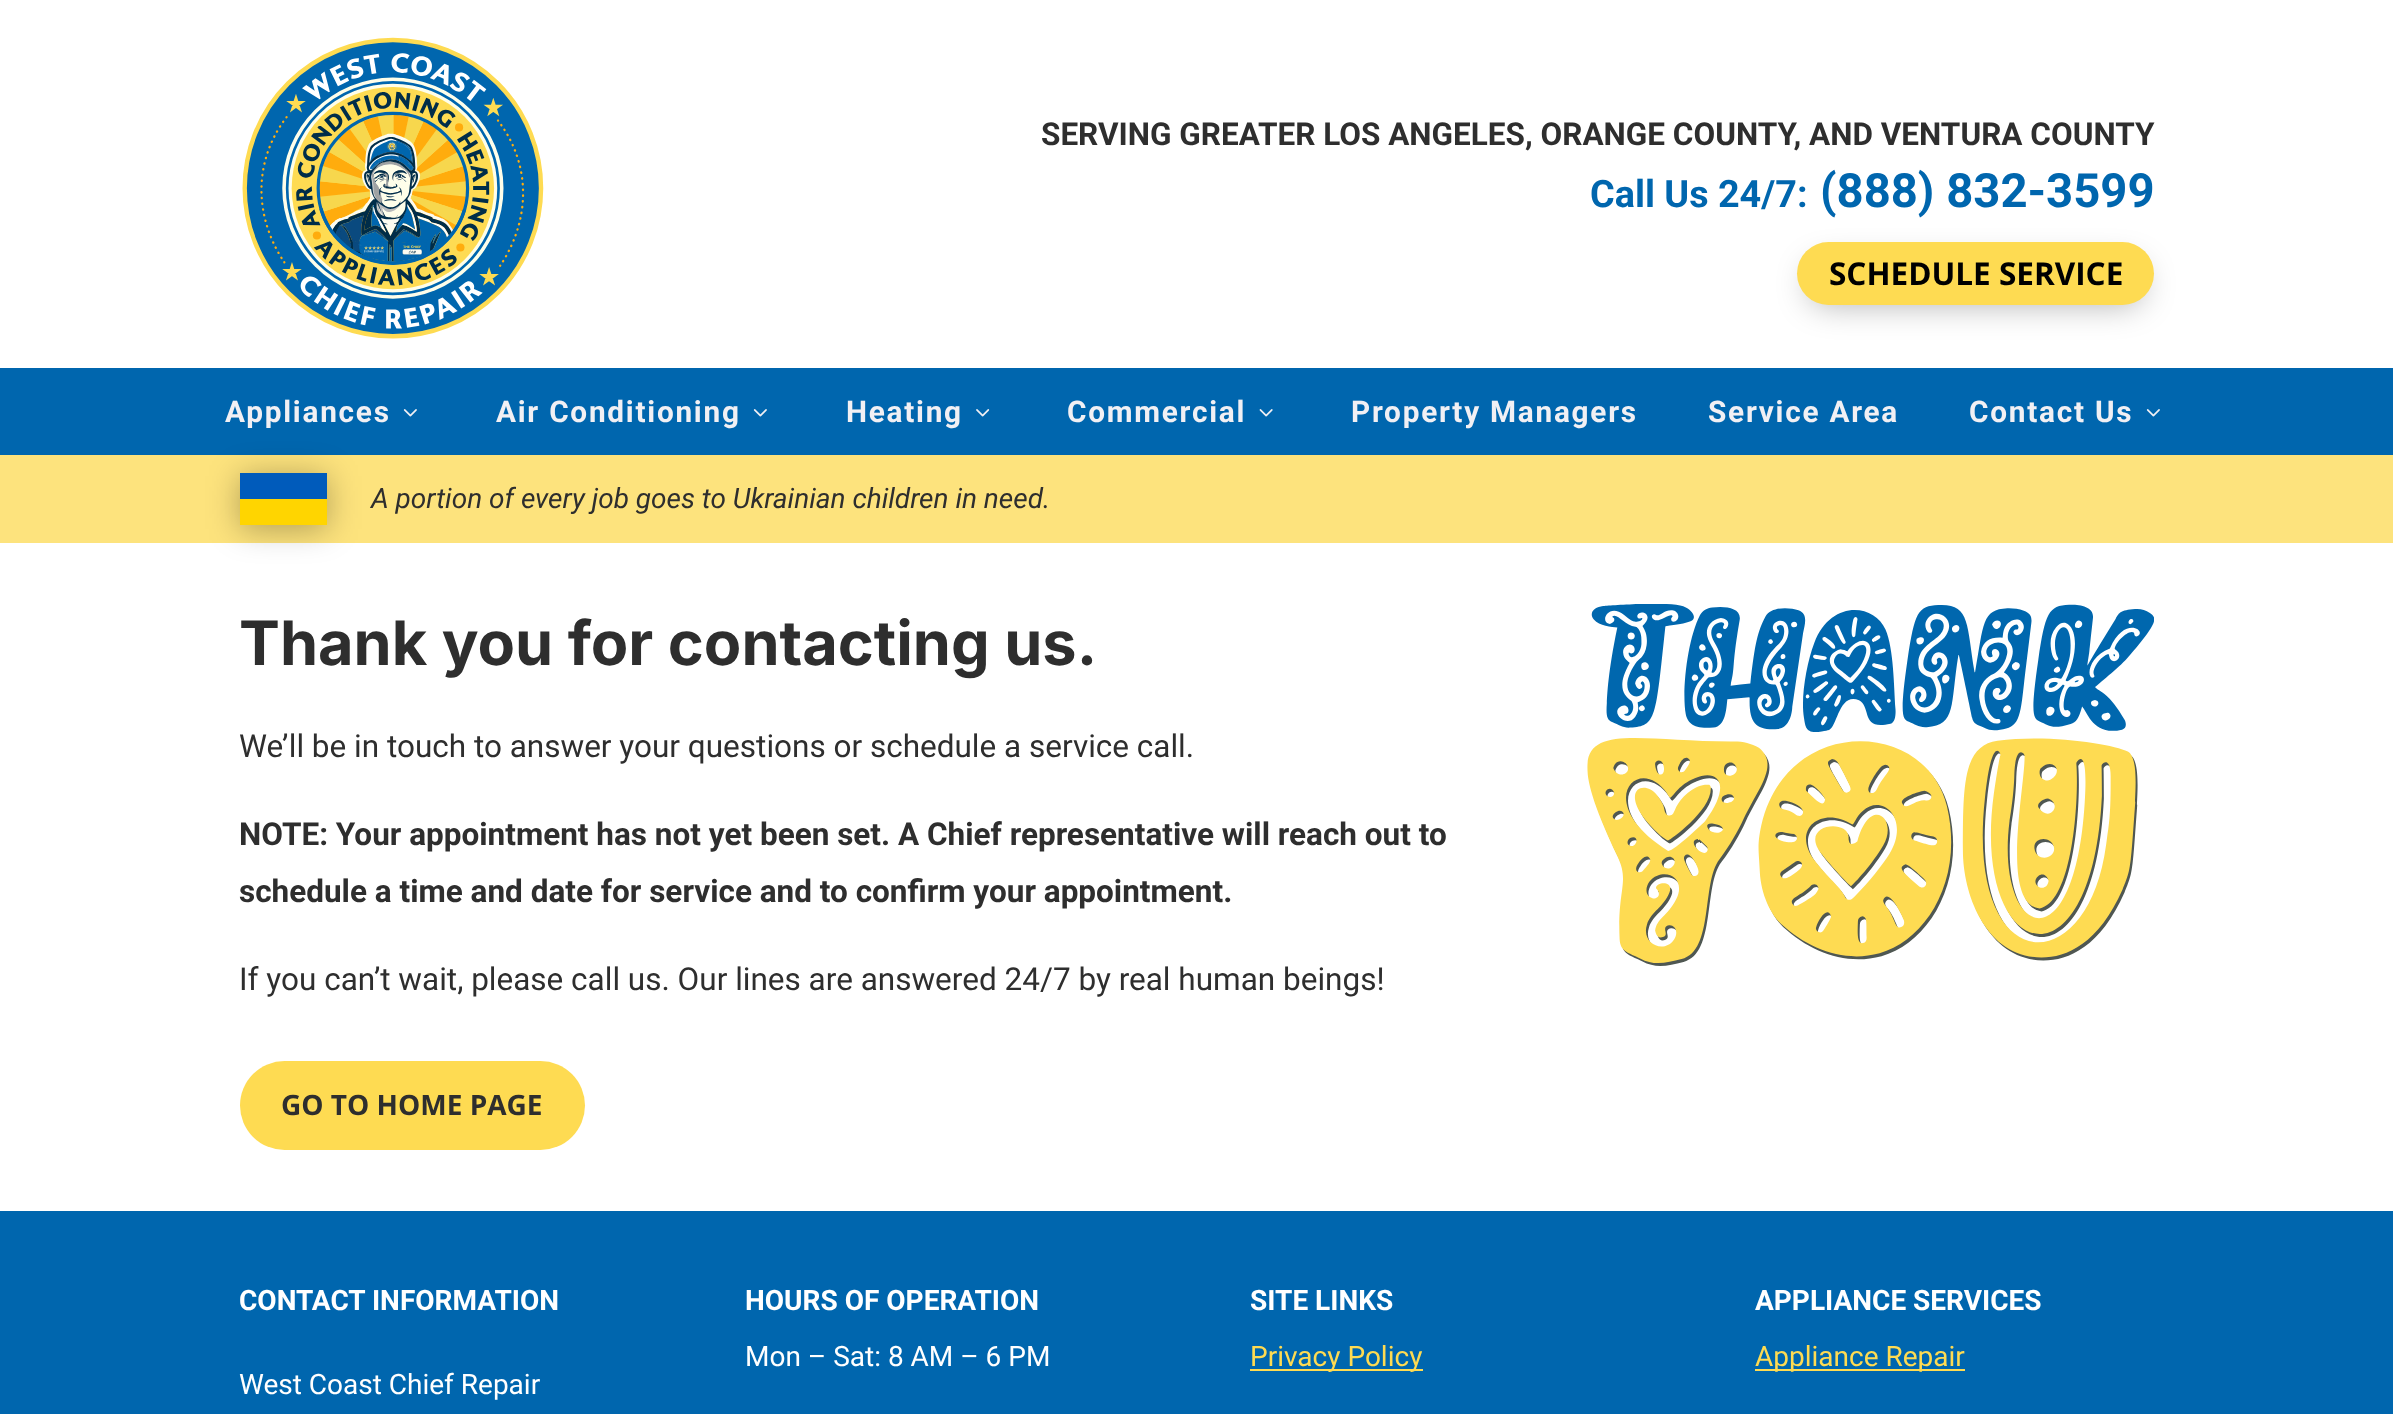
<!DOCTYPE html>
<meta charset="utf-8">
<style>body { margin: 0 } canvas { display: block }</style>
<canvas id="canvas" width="2393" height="1414"></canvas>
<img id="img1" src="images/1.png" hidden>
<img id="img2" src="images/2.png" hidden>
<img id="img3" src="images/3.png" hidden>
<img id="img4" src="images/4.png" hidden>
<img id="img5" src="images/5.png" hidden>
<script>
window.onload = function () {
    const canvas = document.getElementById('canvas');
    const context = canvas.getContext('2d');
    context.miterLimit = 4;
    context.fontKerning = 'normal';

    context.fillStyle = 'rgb(255, 255, 255)';
    context.fillRect(0, 0, 2393, 1414);
    context.drawImage(document.getElementById('img1'), 242, 37, 302, 302);
    context.fillStyle = 'rgba(0, 0, 0, 0.3)';
    context.filter = 'blur(16px)';
    context.beginPath();
    context.roundRect(1808, 263, 336, 42, 21);
    context.fill();
    context.filter = 'none';
    context.fillStyle = 'rgb(254, 219, 82)';
    context.beginPath();
    context.roundRect(1797, 242, 357, 63, 31.5);
    context.fill();
    context.fillStyle = 'rgb(0, 102, 174)';
    context.fillRect(0, 368, 2393, 87);
    context.drawImage(document.getElementById('img2'), 403, 409, 14, 8);
    context.drawImage(document.getElementById('img2'), 753, 409, 14, 8);
    context.drawImage(document.getElementById('img3'), 976, 409, 14, 8);
    context.drawImage(document.getElementById('img4'), 1259, 409, 14, 8);
    context.drawImage(document.getElementById('img2'), 2146, 409, 14, 8);
    context.fillStyle = 'rgb(253, 227, 125)';
    context.fillRect(0, 455, 2393, 88);
    context.fillStyle = 'rgba(0, 0, 0, 0.3)';
    context.filter = 'blur(16px)';
    context.beginPath();
    context.rect(240, 476, 87, 53);
    context.fill();
    context.filter = 'none';
    context.fillStyle = 'rgb(0, 91, 187)';
    context.fillRect(240, 473, 87, 26);
    context.fillStyle = 'rgb(255, 213, 0)';
    context.fillRect(240, 499, 87, 26);
    context.fillStyle = 'rgb(254, 219, 82)';
    context.beginPath();
    context.roundRect(240, 1061, 345, 89, 44.5);
    context.fill();
    context.drawImage(document.getElementById('img5'), 1587, 604, 567, 362);
    context.fillStyle = 'rgb(0, 102, 174)';
    context.fillRect(0, 1211, 2393, 203);
    context.fillStyle = 'rgb(254, 219, 82)';
    context.fillRect(1250, 1369, 173, 2);
    context.fillRect(1755, 1369, 210, 2);
    context.font = 'bold 31.5px Roboto';
    context.fillStyle = 'rgb(46, 46, 46)';
    context.fillText('SERVING GREATER LOS ANGELES, ORANGE COUNTY, AND VENTURA COUNTY', 1041, 145);
    context.font = 'bold 37.75px Roboto';
    context.fillStyle = 'rgb(0, 102, 174)';
    context.fillText('Call Us 24/7:', 1590, 207);
    context.font = 'bold 47.25px Roboto';
    context.fillText('(888) 832-3599', 1820, 207);
    context.font = 'bold 31.5px Open Sans';
    context.fillStyle = 'rgb(0, 0, 0)';
    context.fillText('SCHEDULE SERVICE', 1829, 285);
    context.letterSpacing = '1.75px';
    context.font = 'bold 29.75px Roboto';
    context.fillStyle = 'rgb(241, 240, 244)';
    context.fillText('Appliances', 225, 422);
    context.fillText('Air Conditioning', 496, 422);
    context.fillText('Heating', 846, 422);
    context.fillText('Commercial', 1067, 422);
    context.fillText('Property Managers', 1351, 422);
    context.fillText('Service Area', 1708, 422);
    context.fillText('Contact Us', 1969, 422);
    context.letterSpacing = '0px';
    context.font = 'italic 28px Roboto';
    context.fillStyle = 'rgb(46, 46, 46)';
    context.fillText('A portion of every job goes to Ukrainian children in need.', 371, 508);
    context.font = 'bold 61.25px Inter';
    context.fillText('Thank you for contacting us.', 239, 665);
    context.font = '31.5px Roboto';
    context.fillText('We’ll be in touch to answer your questions or schedule a service call.', 239, 757);
    context.font = 'bold 31.5px Roboto';
    context.fillText('NOTE: Your appointment has not yet been set. A Chief representative will reach out to', 239, 845);
    context.fillText('schedule a time and date for service and to confirm your appointment.', 239, 902);
    context.font = '31.5px Roboto';
    context.fillText('If you can’t wait, please call us. Our lines are answered 24/7 by real human beings!', 239, 990);
    context.font = 'bold 28px Open Sans';
    context.fillText('GO TO HOME PAGE', 281, 1115);
    context.font = 'bold 28px Roboto';
    context.fillStyle = 'rgb(255, 255, 255)';
    context.fillText('CONTACT INFORMATION', 239, 1310);
    context.font = '28px Roboto';
    context.fillText('West Coast Chief Repair', 239, 1394);
    context.font = 'bold 28px Roboto';
    context.fillText('HOURS OF OPERATION', 745, 1310);
    context.font = '28px Roboto';
    context.fillText('Mon – Sat: 8 AM – 6 PM', 745, 1366);
    context.font = 'bold 28px Roboto';
    context.fillText('SITE LINKS', 1250, 1310);
    context.font = '28px Roboto';
    context.fillStyle = 'rgb(254, 219, 82)';
    context.fillText('Privacy Policy', 1250, 1366);
    context.font = 'bold 28px Roboto';
    context.fillStyle = 'rgb(255, 255, 255)';
    context.fillText('APPLIANCE SERVICES', 1755, 1310);
    context.font = '28px Roboto';
    context.fillStyle = 'rgb(254, 219, 82)';
    context.fillText('Appliance Repair', 1755, 1366);
};
</script>
